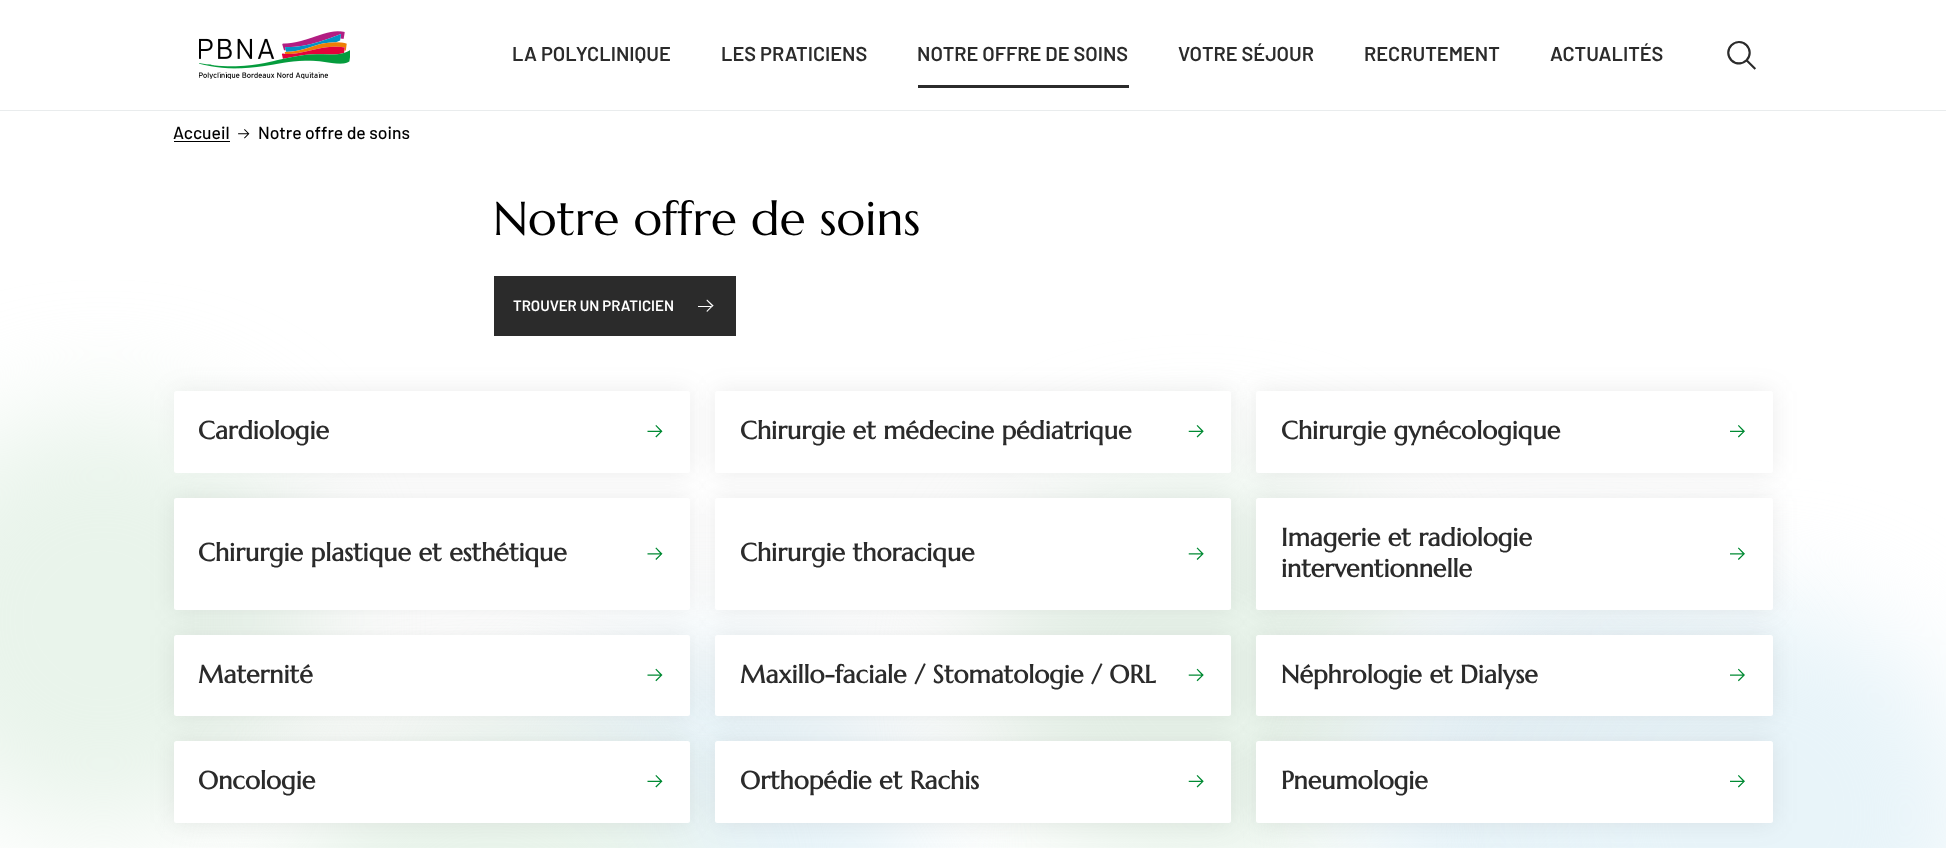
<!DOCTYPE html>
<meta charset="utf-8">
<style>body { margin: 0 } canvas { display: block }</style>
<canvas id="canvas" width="1946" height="848"></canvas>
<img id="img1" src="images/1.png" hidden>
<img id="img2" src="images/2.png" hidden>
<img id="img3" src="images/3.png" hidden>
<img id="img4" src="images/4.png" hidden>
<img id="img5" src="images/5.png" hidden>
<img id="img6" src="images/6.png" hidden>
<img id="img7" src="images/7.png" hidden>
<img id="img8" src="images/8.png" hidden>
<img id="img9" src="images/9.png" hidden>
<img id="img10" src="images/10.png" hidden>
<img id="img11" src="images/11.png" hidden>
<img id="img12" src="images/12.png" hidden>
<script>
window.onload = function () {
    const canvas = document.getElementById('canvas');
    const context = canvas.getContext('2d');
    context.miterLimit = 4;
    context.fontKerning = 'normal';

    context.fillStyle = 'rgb(255, 255, 255)';
    context.fillRect(0, 0, 1946, 848);
    context.fillStyle = 'rgb(233, 236, 237)';
    context.fillRect(0, 110, 1946, 1);
    context.drawImage(document.getElementById('img1'), 199, 31, 151, 48);
    context.fillStyle = 'rgb(43, 43, 43)';
    context.fillRect(918, 85, 211, 3);
    context.drawImage(document.getElementById('img2'), 1727, 41, 29, 29);
    context.fillStyle = 'rgb(0, 0, 0)';
    context.fillRect(174, 141, 56, 1);
    context.drawImage(document.getElementById('img3'), 238, 129, 12, 10);
    context.fillStyle = 'rgb(43, 43, 43)';
    context.fillRect(494, 276, 242, 60);
    context.fillStyle = 'rgb(255, 255, 255)';
    context.fillRect(698, 306, 13, 1);
    context.beginPath();
    context.moveTo(706.5, 300.5);
    context.lineTo(707, 299.5);
    context.lineTo(713.5, 305.5);
    context.lineTo(712.5, 306.5);
    context.closePath();
    context.fill();
    context.beginPath();
    context.moveTo(706.5, 311);
    context.lineTo(712.5, 305);
    context.lineTo(713.5, 305.5);
    context.lineTo(707, 312);
    context.closePath();
    context.fill();
    context.fillStyle = 'rgba(89, 89, 89, 0.12)';
    context.filter = 'blur(12.5px)';
    context.beginPath();
    context.roundRect(174, 391, 516, 82, 2.5);
    context.fill();
    context.filter = 'none';
    context.fillStyle = 'rgb(233, 244, 235)';
    context.filter = 'blur(55.5px)';
    context.beginPath();
    context.roundRect(-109, 408, 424, 423, 211.5);
    context.fill();
    context.filter = 'none';
    context.fillStyle = 'rgb(255, 255, 255)';
    context.beginPath();
    context.roundRect(174, 391, 516, 82, 2.5);
    context.fill();
    context.drawImage(document.getElementById('img4'), 647, 425, 16, 13);
    context.fillStyle = 'rgba(89, 89, 89, 0.12)';
    context.filter = 'blur(12.5px)';
    context.beginPath();
    context.roundRect(715, 391, 516, 82, 2.5);
    context.fill();
    context.filter = 'none';
    context.fillStyle = 'rgb(233, 244, 235)';
    context.filter = 'blur(57px)';
    context.beginPath();
    context.roundRect(985, 466, 424, 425, 212);
    context.fill();
    context.filter = 'none';
    context.fillStyle = 'rgb(232, 244, 249)';
    context.filter = 'blur(53.5px)';
    context.beginPath();
    context.roundRect(1355, 586, 424, 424, 212);
    context.fill();
    context.filter = 'none';
    context.fillStyle = 'rgb(255, 255, 255)';
    context.beginPath();
    context.roundRect(715, 391, 516, 82, 2.5);
    context.fill();
    context.drawImage(document.getElementById('img5'), 1188, 425, 16, 13);
    context.fillStyle = 'rgba(89, 89, 89, 0.12)';
    context.filter = 'blur(12.5px)';
    context.beginPath();
    context.roundRect(1256, 391, 517, 82, 2.5);
    context.fill();
    context.filter = 'none';
    context.fillStyle = 'rgb(232, 244, 249)';
    context.filter = 'blur(54.5px)';
    context.beginPath();
    context.roundRect(1550, 603, 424, 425, 212);
    context.fill();
    context.filter = 'none';
    context.fillStyle = 'rgb(255, 255, 255)';
    context.beginPath();
    context.roundRect(1256, 391, 517, 82, 2.5);
    context.fill();
    context.drawImage(document.getElementById('img6'), 1730, 425, 15, 13);
    context.fillStyle = 'rgba(89, 89, 89, 0.12)';
    context.filter = 'blur(12.5px)';
    context.beginPath();
    context.roundRect(174, 498, 516, 112, 2.5);
    context.fill();
    context.filter = 'none';
    context.fillStyle = 'rgb(232, 244, 249)';
    context.filter = 'blur(56.5px)';
    context.beginPath();
    context.roundRect(494, 645, 425, 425, 212.5);
    context.fill();
    context.filter = 'none';
    context.fillStyle = 'rgb(233, 244, 235)';
    context.filter = 'blur(56px)';
    context.beginPath();
    context.roundRect(280, 721, 425, 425, 212.5);
    context.fill();
    context.filter = 'none';
    context.fillStyle = 'rgb(255, 255, 255)';
    context.beginPath();
    context.roundRect(174, 498, 516, 112, 2.5);
    context.fill();
    context.drawImage(document.getElementById('img7'), 647, 547, 16, 13);
    context.fillStyle = 'rgba(89, 89, 89, 0.12)';
    context.filter = 'blur(12.5px)';
    context.beginPath();
    context.roundRect(715, 498, 516, 112, 2.5);
    context.fill();
    context.filter = 'none';
    context.fillStyle = 'rgb(255, 255, 255)';
    context.beginPath();
    context.roundRect(715, 498, 516, 112, 2.5);
    context.fill();
    context.drawImage(document.getElementById('img8'), 1188, 547, 16, 13);
    context.fillStyle = 'rgba(89, 89, 89, 0.12)';
    context.filter = 'blur(12.5px)';
    context.beginPath();
    context.roundRect(1256, 498, 517, 112, 2.5);
    context.fill();
    context.filter = 'none';
    context.fillStyle = 'rgb(255, 255, 255)';
    context.beginPath();
    context.roundRect(1256, 498, 517, 112, 2.5);
    context.fill();
    context.drawImage(document.getElementById('img9'), 1730, 547, 15, 13);
    context.fillStyle = 'rgba(89, 89, 89, 0.12)';
    context.filter = 'blur(12.5px)';
    context.beginPath();
    context.roundRect(174, 635, 516, 81, 2.5);
    context.fill();
    context.filter = 'none';
    context.fillStyle = 'rgb(255, 255, 255)';
    context.beginPath();
    context.roundRect(174, 635, 516, 81, 2.5);
    context.fill();
    context.drawImage(document.getElementById('img10'), 647, 668, 16, 14);
    context.fillStyle = 'rgba(89, 89, 89, 0.12)';
    context.filter = 'blur(12.5px)';
    context.beginPath();
    context.roundRect(715, 635, 516, 81, 2.5);
    context.fill();
    context.filter = 'none';
    context.fillStyle = 'rgb(255, 255, 255)';
    context.beginPath();
    context.roundRect(715, 635, 516, 81, 2.5);
    context.fill();
    context.drawImage(document.getElementById('img11'), 1188, 668, 16, 14);
    context.fillStyle = 'rgba(89, 89, 89, 0.12)';
    context.filter = 'blur(12.5px)';
    context.beginPath();
    context.roundRect(1256, 635, 517, 81, 2.5);
    context.fill();
    context.filter = 'none';
    context.fillStyle = 'rgb(255, 255, 255)';
    context.beginPath();
    context.roundRect(1256, 635, 517, 81, 2.5);
    context.fill();
    context.drawImage(document.getElementById('img12'), 1730, 668, 15, 14);
    context.fillStyle = 'rgba(89, 89, 89, 0.12)';
    context.filter = 'blur(12.5px)';
    context.beginPath();
    context.roundRect(174, 741, 516, 82, 2.5);
    context.fill();
    context.filter = 'none';
    context.fillStyle = 'rgb(255, 255, 255)';
    context.beginPath();
    context.roundRect(174, 741, 516, 82, 2.5);
    context.fill();
    context.drawImage(document.getElementById('img4'), 647, 775, 16, 13);
    context.fillStyle = 'rgba(89, 89, 89, 0.12)';
    context.filter = 'blur(12.5px)';
    context.beginPath();
    context.roundRect(715, 741, 516, 82, 2.5);
    context.fill();
    context.filter = 'none';
    context.fillStyle = 'rgb(255, 255, 255)';
    context.beginPath();
    context.roundRect(715, 741, 516, 82, 2.5);
    context.fill();
    context.drawImage(document.getElementById('img5'), 1188, 775, 16, 13);
    context.fillStyle = 'rgba(89, 89, 89, 0.12)';
    context.filter = 'blur(12.5px)';
    context.beginPath();
    context.roundRect(1256, 741, 517, 82, 2.5);
    context.fill();
    context.filter = 'none';
    context.fillStyle = 'rgb(255, 255, 255)';
    context.beginPath();
    context.roundRect(1256, 741, 517, 82, 2.5);
    context.fill();
    context.drawImage(document.getElementById('img6'), 1730, 775, 15, 13);
    context.font = '600 20px Barlow';
    context.fillStyle = 'rgb(43, 43, 43)';
    context.fillText('LA POLYCLINIQUE', 512, 61);
    context.fillText('LES PRATICIENS', 721, 61);
    context.fillText('NOTRE OFFRE DE SOINS', 917, 61);
    context.fillText('VOTRE SÉJOUR', 1178, 61);
    context.fillText('RECRUTEMENT', 1364, 61);
    context.fillText('ACTUALITÉS', 1550, 61);
    context.font = '500 17.5px Barlow';
    context.fillStyle = 'rgb(0, 0, 0)';
    context.fillText('Accueil', 173, 139);
    context.fillText('Notre offre de soins', 258, 139);
    context.font = '47.5px Marcellus';
    context.fillText('Notre offre de soins', 493, 235);
    context.font = '600 15px Barlow';
    context.fillStyle = 'rgb(255, 255, 255)';
    context.fillText('TROUVER UN PRATICIEN', 513, 311);
    context.font = 'bold 25px Marcellus';
    context.fillStyle = 'rgb(43, 43, 43)';
    context.fillText('Cardiologie', 198, 439);
    context.fillText('Chirurgie et médecine pédiatrique', 740, 439);
    context.fillText('Chirurgie gynécologique', 1281, 439);
    context.fillText('Chirurgie plastique et esthétique', 198, 561);
    context.fillText('Chirurgie thoracique', 740, 561);
    context.fillText('Imagerie et radiologie', 1281, 546);
    context.fillText('interventionnelle', 1281, 577);
    context.fillText('Maternité', 198, 683);
    context.fillText('Maxillo-faciale / Stomatologie / ORL', 740, 683);
    context.fillText('Néphrologie et Dialyse', 1281, 683);
    context.fillText('Oncologie', 198, 789);
    context.fillText('Orthopédie et Rachis', 740, 789);
    context.fillText('Pneumologie', 1281, 789);
};
</script>
